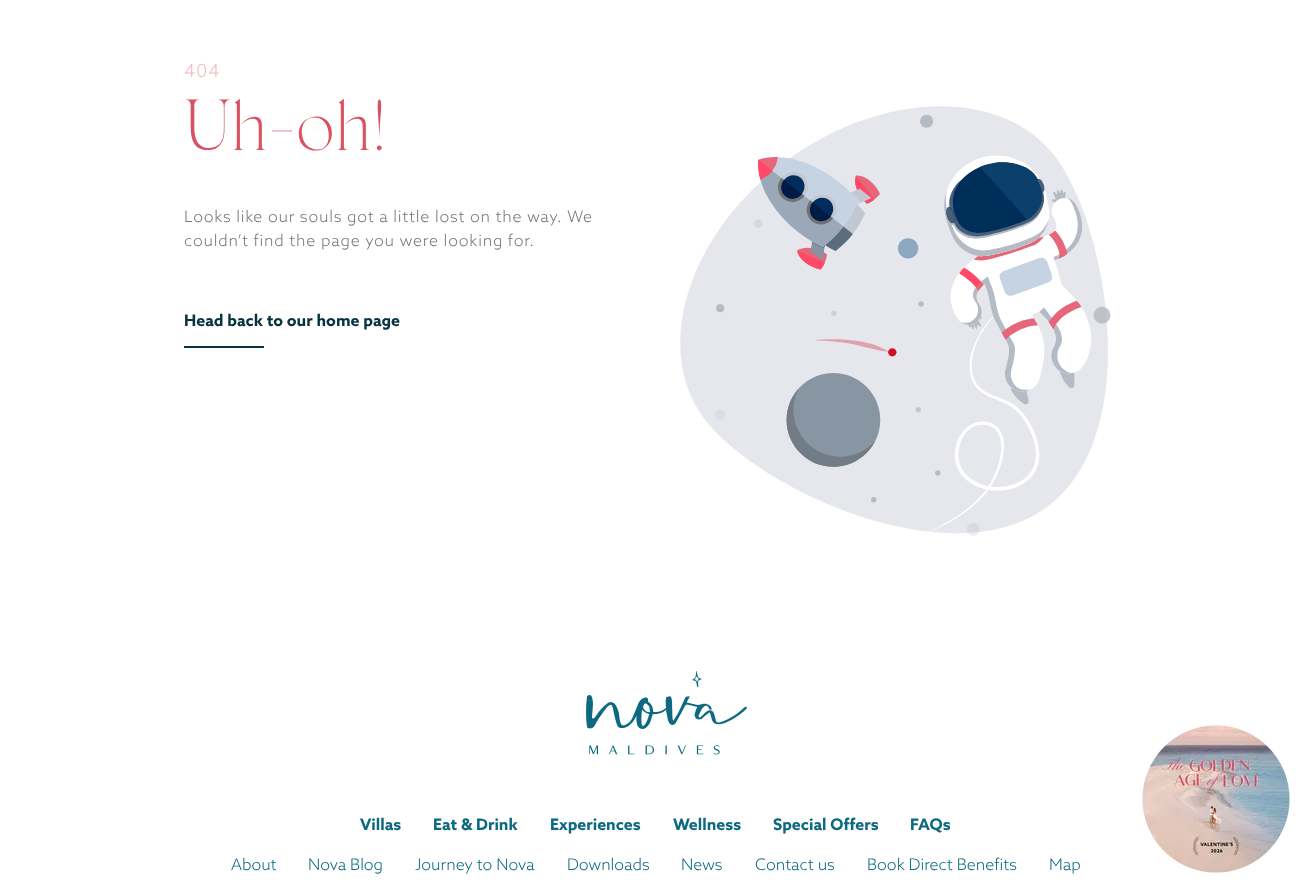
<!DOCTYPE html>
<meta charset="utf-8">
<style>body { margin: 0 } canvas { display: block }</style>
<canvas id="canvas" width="1311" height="894"></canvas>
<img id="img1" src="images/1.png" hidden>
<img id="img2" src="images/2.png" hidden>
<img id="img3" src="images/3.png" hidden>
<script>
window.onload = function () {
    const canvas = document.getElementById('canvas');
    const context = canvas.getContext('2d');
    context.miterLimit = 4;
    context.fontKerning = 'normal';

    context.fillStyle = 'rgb(255, 255, 255)';
    context.fillRect(0, 0, 1311, 894);
    context.fillStyle = 'rgb(6, 51, 63)';
    context.fillRect(184, 346, 80, 2);
    context.drawImage(document.getElementById('img1'), 680, 106, 431, 430);
    context.drawImage(document.getElementById('img2'), 586, 671, 161, 84);
    context.drawImage(document.getElementById('img3'), 1142, 725, 148, 148);
    context.letterSpacing = '1px';
    context.font = '300 18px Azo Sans';
    context.fillStyle = 'rgb(240, 186, 192)';
    context.fillText('404', 184, 77);
    context.letterSpacing = '0px';
    context.font = '200 72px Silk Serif';
    context.fillStyle = 'rgb(218, 82, 98)';
    context.fillText('Uh-oh!', 184, 150);
    context.letterSpacing = '0.8px';
    context.font = '300 16px Azo Sans';
    context.fillStyle = 'rgb(120, 120, 120)';
    context.fillText('Looks like our souls got a little lost on the way. We', 184, 222);
    context.fillText('couldn’t find the page you were looking for.', 184, 246);
    context.letterSpacing = '0px';
    context.font = 'bold 16px Azo Sans';
    context.fillStyle = 'rgb(6, 51, 63)';
    context.fillText('Head back to our home page', 184, 326);
    context.fillStyle = 'rgb(12, 105, 128)';
    context.fillText('Villas', 360, 830);
    context.fillText('Eat & Drink', 433, 830);
    context.fillText('Experiences', 550, 830);
    context.fillText('Wellness', 673, 830);
    context.fillText('Special Offers', 773, 830);
    context.fillText('FAQs', 910, 830);
    context.font = '300 16px Azo Sans';
    context.fillText('About', 231, 870);
    context.fillText('Nova Blog', 308, 870);
    context.fillText('Journey to Nova', 415, 870);
    context.fillText('Downloads', 567, 870);
    context.fillText('News', 681, 870);
    context.fillText('Contact us', 755, 870);
    context.fillText('Book Direct Benefits', 867, 870);
    context.fillText('Map', 1049, 870);
};
</script>
